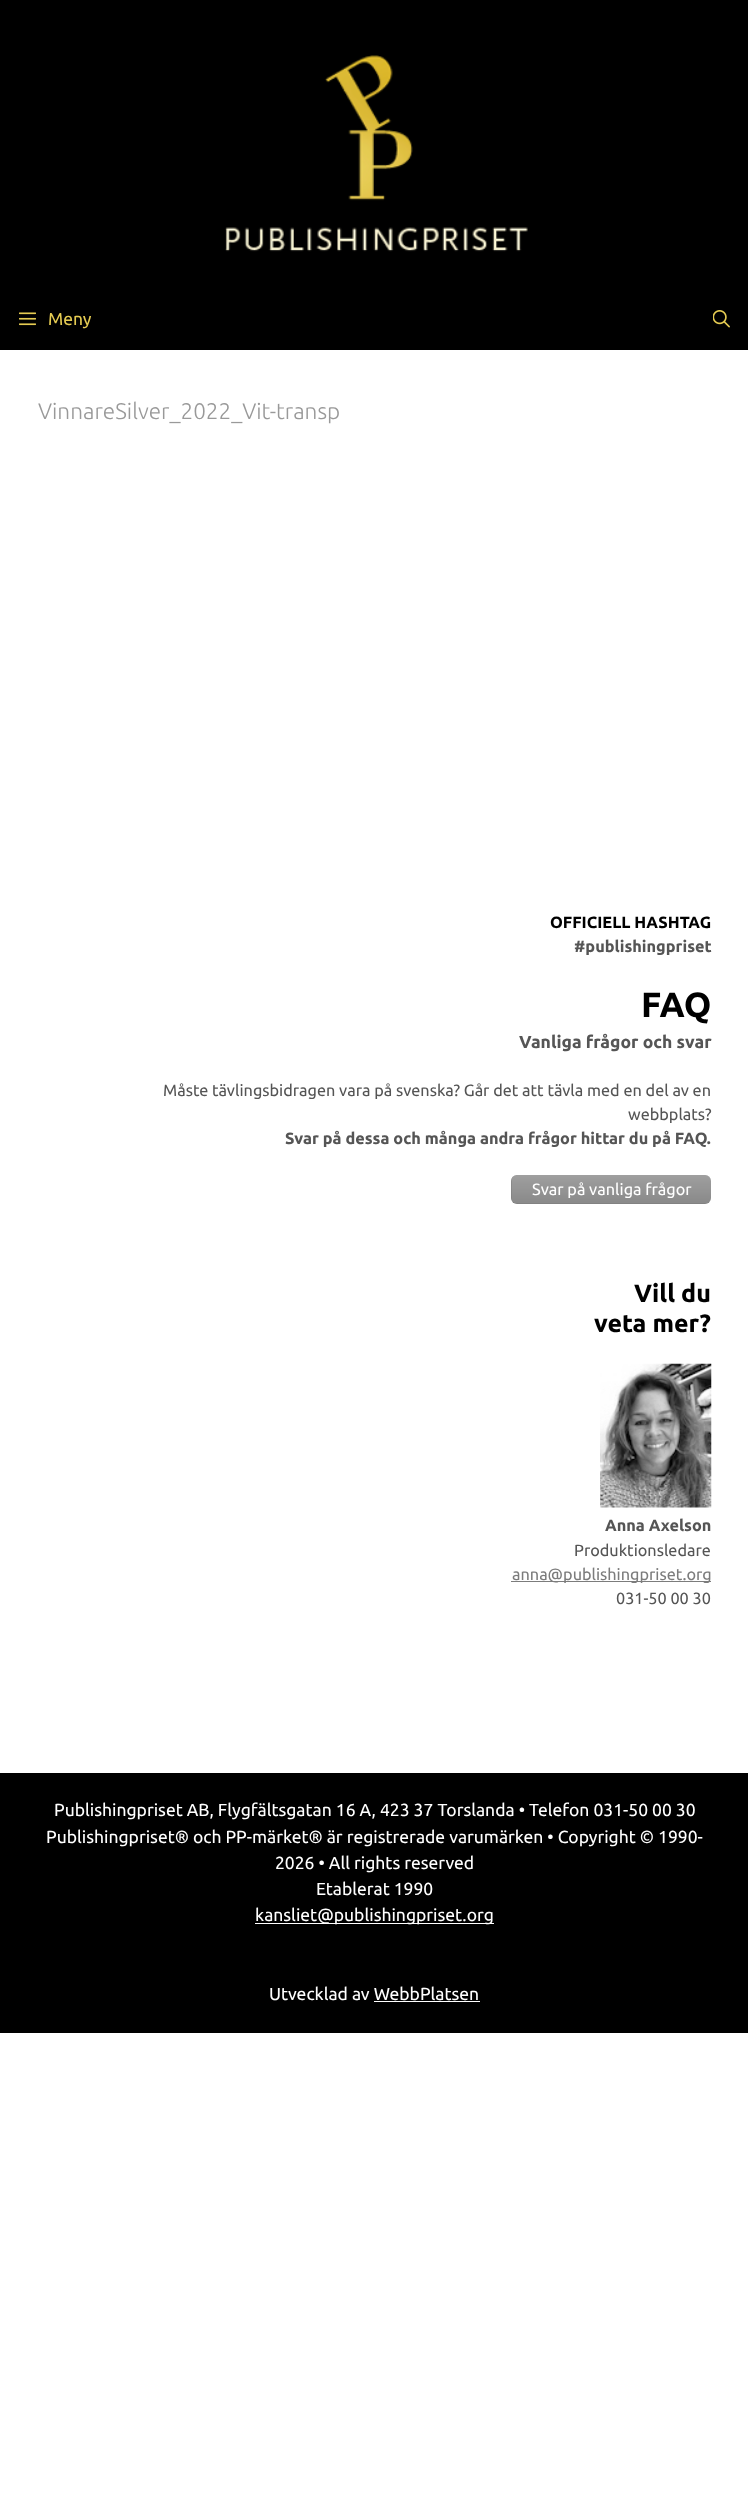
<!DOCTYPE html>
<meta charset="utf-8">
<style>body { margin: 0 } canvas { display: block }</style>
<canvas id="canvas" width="748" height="2503"></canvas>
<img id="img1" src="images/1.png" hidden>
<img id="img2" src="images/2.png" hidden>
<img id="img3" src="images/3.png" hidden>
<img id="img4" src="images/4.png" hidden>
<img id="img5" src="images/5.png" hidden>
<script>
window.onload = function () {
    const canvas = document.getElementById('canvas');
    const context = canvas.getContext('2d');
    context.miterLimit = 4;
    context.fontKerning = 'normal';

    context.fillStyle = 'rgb(255, 255, 255)';
    context.fillRect(0, 0, 748, 2503);
    context.fillStyle = 'rgb(0, 0, 0)';
    context.fillRect(0, 0, 748, 350);
    context.drawImage(document.getElementById('img1'), 225, 55, 303, 197);
    context.drawImage(document.getElementById('img2'), 19, 312, 17, 14);
    context.drawImage(document.getElementById('img3'), 713, 310, 17, 18);
    context.fillStyle = 'rgb(120, 120, 120)';
    context.beginPath();
    context.roundRect(511, 1175, 200, 29, 6);
    context.fill();
    context.drawImage(document.getElementById('img4'), 511, 1175, 200, 29);
    context.drawImage(document.getElementById('img5'), 600, 1363, 112, 145);
    context.fillStyle = 'rgb(124, 124, 124)';
    context.fillRect(511, 1581, 200, 1);
    context.fillStyle = 'rgb(0, 0, 0)';
    context.fillRect(0, 1773, 748, 260);
    context.fillStyle = 'rgb(255, 255, 255)';
    context.fillRect(255, 1923, 239, 1);
    context.fillRect(374, 2001, 106, 1);
    context.font = '17.5px Ubuntu';
    context.fillStyle = 'rgb(229, 203, 82)';
    context.fillText('Meny', 48, 325);
    context.font = '300 22.5px Ubuntu';
    context.fillStyle = 'rgb(153, 153, 153)';
    context.fillText('VinnareSilver_2022_Vit-transp', 38, 419);
    context.font = 'bold 16.25px Ubuntu';
    context.fillStyle = 'rgb(0, 0, 0)';
    context.fillText('OFFICIELL HASHTAG', 550, 928);
    context.fillStyle = 'rgb(85, 85, 85)';
    context.fillText('#publishingpriset', 574, 952);
    context.font = 'bold 35px Ubuntu';
    context.fillStyle = 'rgb(0, 0, 0)';
    context.fillText('FAQ', 641, 1017);
    context.font = 'bold 17.5px Ubuntu';
    context.fillStyle = 'rgb(85, 85, 85)';
    context.fillText('Vanliga frågor och svar', 519, 1048);
    context.font = '16.25px Ubuntu';
    context.fillText('Måste tävlingsbidragen vara på svenska? Går det att tävla med en del av en', 163, 1096);
    context.fillText('webbplats?', 628, 1120);
    context.font = 'bold 16.25px Ubuntu';
    context.fillText('Svar på dessa och många andra frågor hittar du på FAQ.', 285, 1144);
    context.font = '16.25px Ubuntu';
    context.fillStyle = 'rgb(255, 255, 255)';
    context.fillText('Svar på vanliga frågor', 532, 1195);
    context.font = 'bold 25px Ubuntu';
    context.fillStyle = 'rgb(0, 0, 0)';
    context.fillText('Vill du', 634, 1302);
    context.fillText('veta mer?', 594, 1332);
    context.font = 'bold 16.25px Ubuntu';
    context.fillStyle = 'rgb(85, 85, 85)';
    context.fillText('Anna Axelson', 605, 1531);
    context.font = '16.25px Ubuntu';
    context.fillText('Produktionsledare', 574, 1556);
    context.fillStyle = 'rgb(124, 124, 124)';
    context.fillText('anna@publishingpriset.org', 512, 1580);
    context.fillStyle = 'rgb(85, 85, 85)';
    context.fillText('031-50 00 30', 616, 1604);
    context.font = '17.5px Ubuntu';
    context.fillStyle = 'rgb(255, 255, 255)';
    context.fillText('Publishingpriset AB, Flygfältsgatan 16 A, 423 37 Torslanda • Telefon 031-50 00 30', 54, 1816);
    context.fillText('Publishingpriset® och PP-märket® är registrerade varumärken • Copyright © 1990-', 46, 1843);
    context.fillText('2026 • All rights reserved', 275, 1869);
    context.fillText('Etablerat 1990', 316, 1895);
    context.fillText('kansliet@publishingpriset.org', 255, 1921);
    context.fillText('Utvecklad av WebbPlatsen', 269, 2000);
};
</script>
